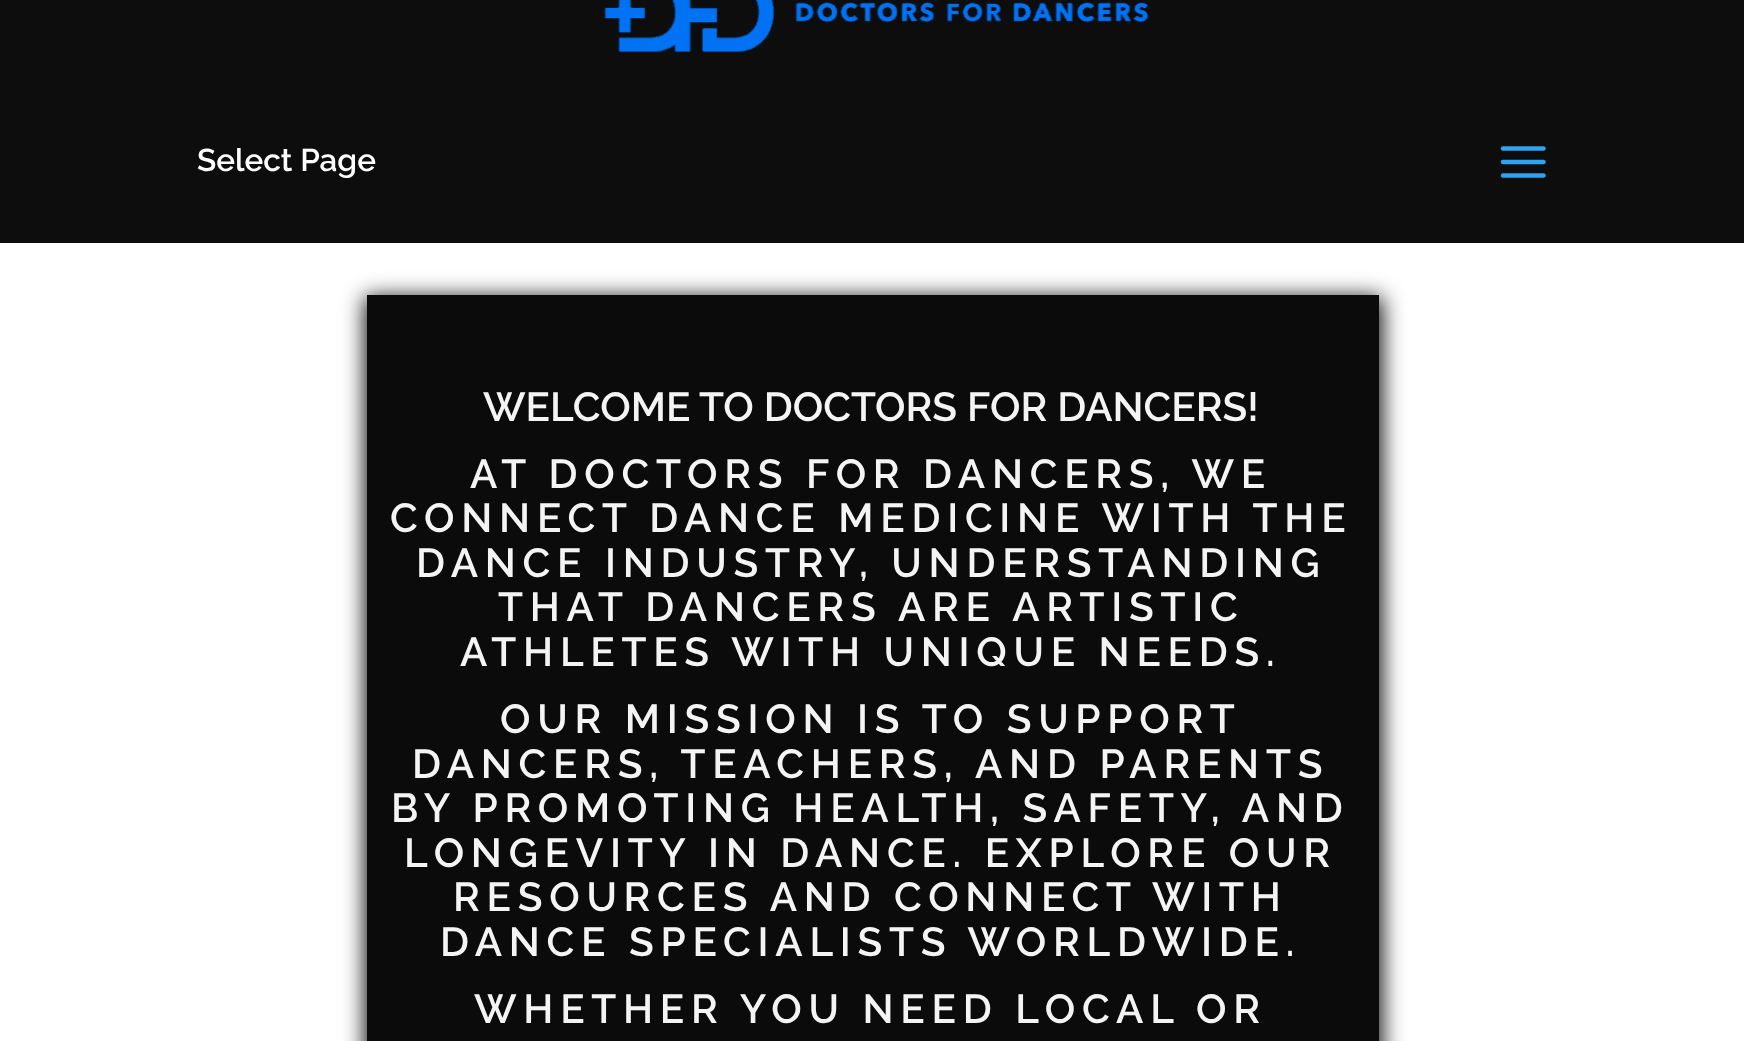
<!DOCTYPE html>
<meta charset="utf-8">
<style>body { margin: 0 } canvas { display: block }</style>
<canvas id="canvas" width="1744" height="1041"></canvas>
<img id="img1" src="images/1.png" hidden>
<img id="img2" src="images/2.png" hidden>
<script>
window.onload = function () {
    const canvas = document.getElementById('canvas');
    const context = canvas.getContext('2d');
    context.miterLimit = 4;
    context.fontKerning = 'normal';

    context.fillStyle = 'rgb(255, 255, 255)';
    context.fillRect(0, 0, 1744, 1041);
    context.fillStyle = 'rgb(13, 13, 13)';
    context.fillRect(0, 0, 1744, 243);
    context.drawImage(document.getElementById('img1'), 604, 0, 545, 52);
    context.drawImage(document.getElementById('img2'), 1500, 146, 46, 32);
    context.fillStyle = 'rgb(11, 11, 11)';
    context.filter = 'blur(11px)';
    context.beginPath();
    context.rect(365, 297, 1017, 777);
    context.fill();
    context.filter = 'none';
    context.fillRect(367, 295, 1012, 746);
    context.font = '100 31.5px Raleway';
    context.fillStyle = 'rgb(255, 255, 255)';
    context.fillText('Select Page', 197, 171);
    context.font = '100 40.5px Raleway';
    context.fillStyle = 'rgb(244, 244, 244)';
    context.fillText('WELCOME TO DOCTORS FOR DANCERS!', 483, 421);
    context.letterSpacing = '6.75px';
    context.fillText('AT DOCTORS FOR DANCERS, WE', 470, 488);
    context.fillText('CONNECT DANCE MEDICINE WITH THE', 390, 532);
    context.fillText('DANCE INDUSTRY, UNDERSTANDING', 416, 577);
    context.fillText('THAT DANCERS ARE ARTISTIC', 498, 621);
    context.fillText('ATHLETES WITH UNIQUE NEEDS.', 460, 666);
    context.fillText('OUR MISSION IS TO SUPPORT', 500, 733);
    context.fillText('DANCERS, TEACHERS, AND PARENTS', 412, 778);
    context.fillText('BY PROMOTING HEALTH, SAFETY, AND', 391, 822);
    context.fillText('LONGEVITY IN DANCE. EXPLORE OUR', 404, 867);
    context.fillText('RESOURCES AND CONNECT WITH', 453, 911);
    context.fillText('DANCE SPECIALISTS WORLDWIDE.', 440, 956);
    context.fillText('WHETHER YOU NEED LOCAL OR', 474, 1023);
};
</script>
